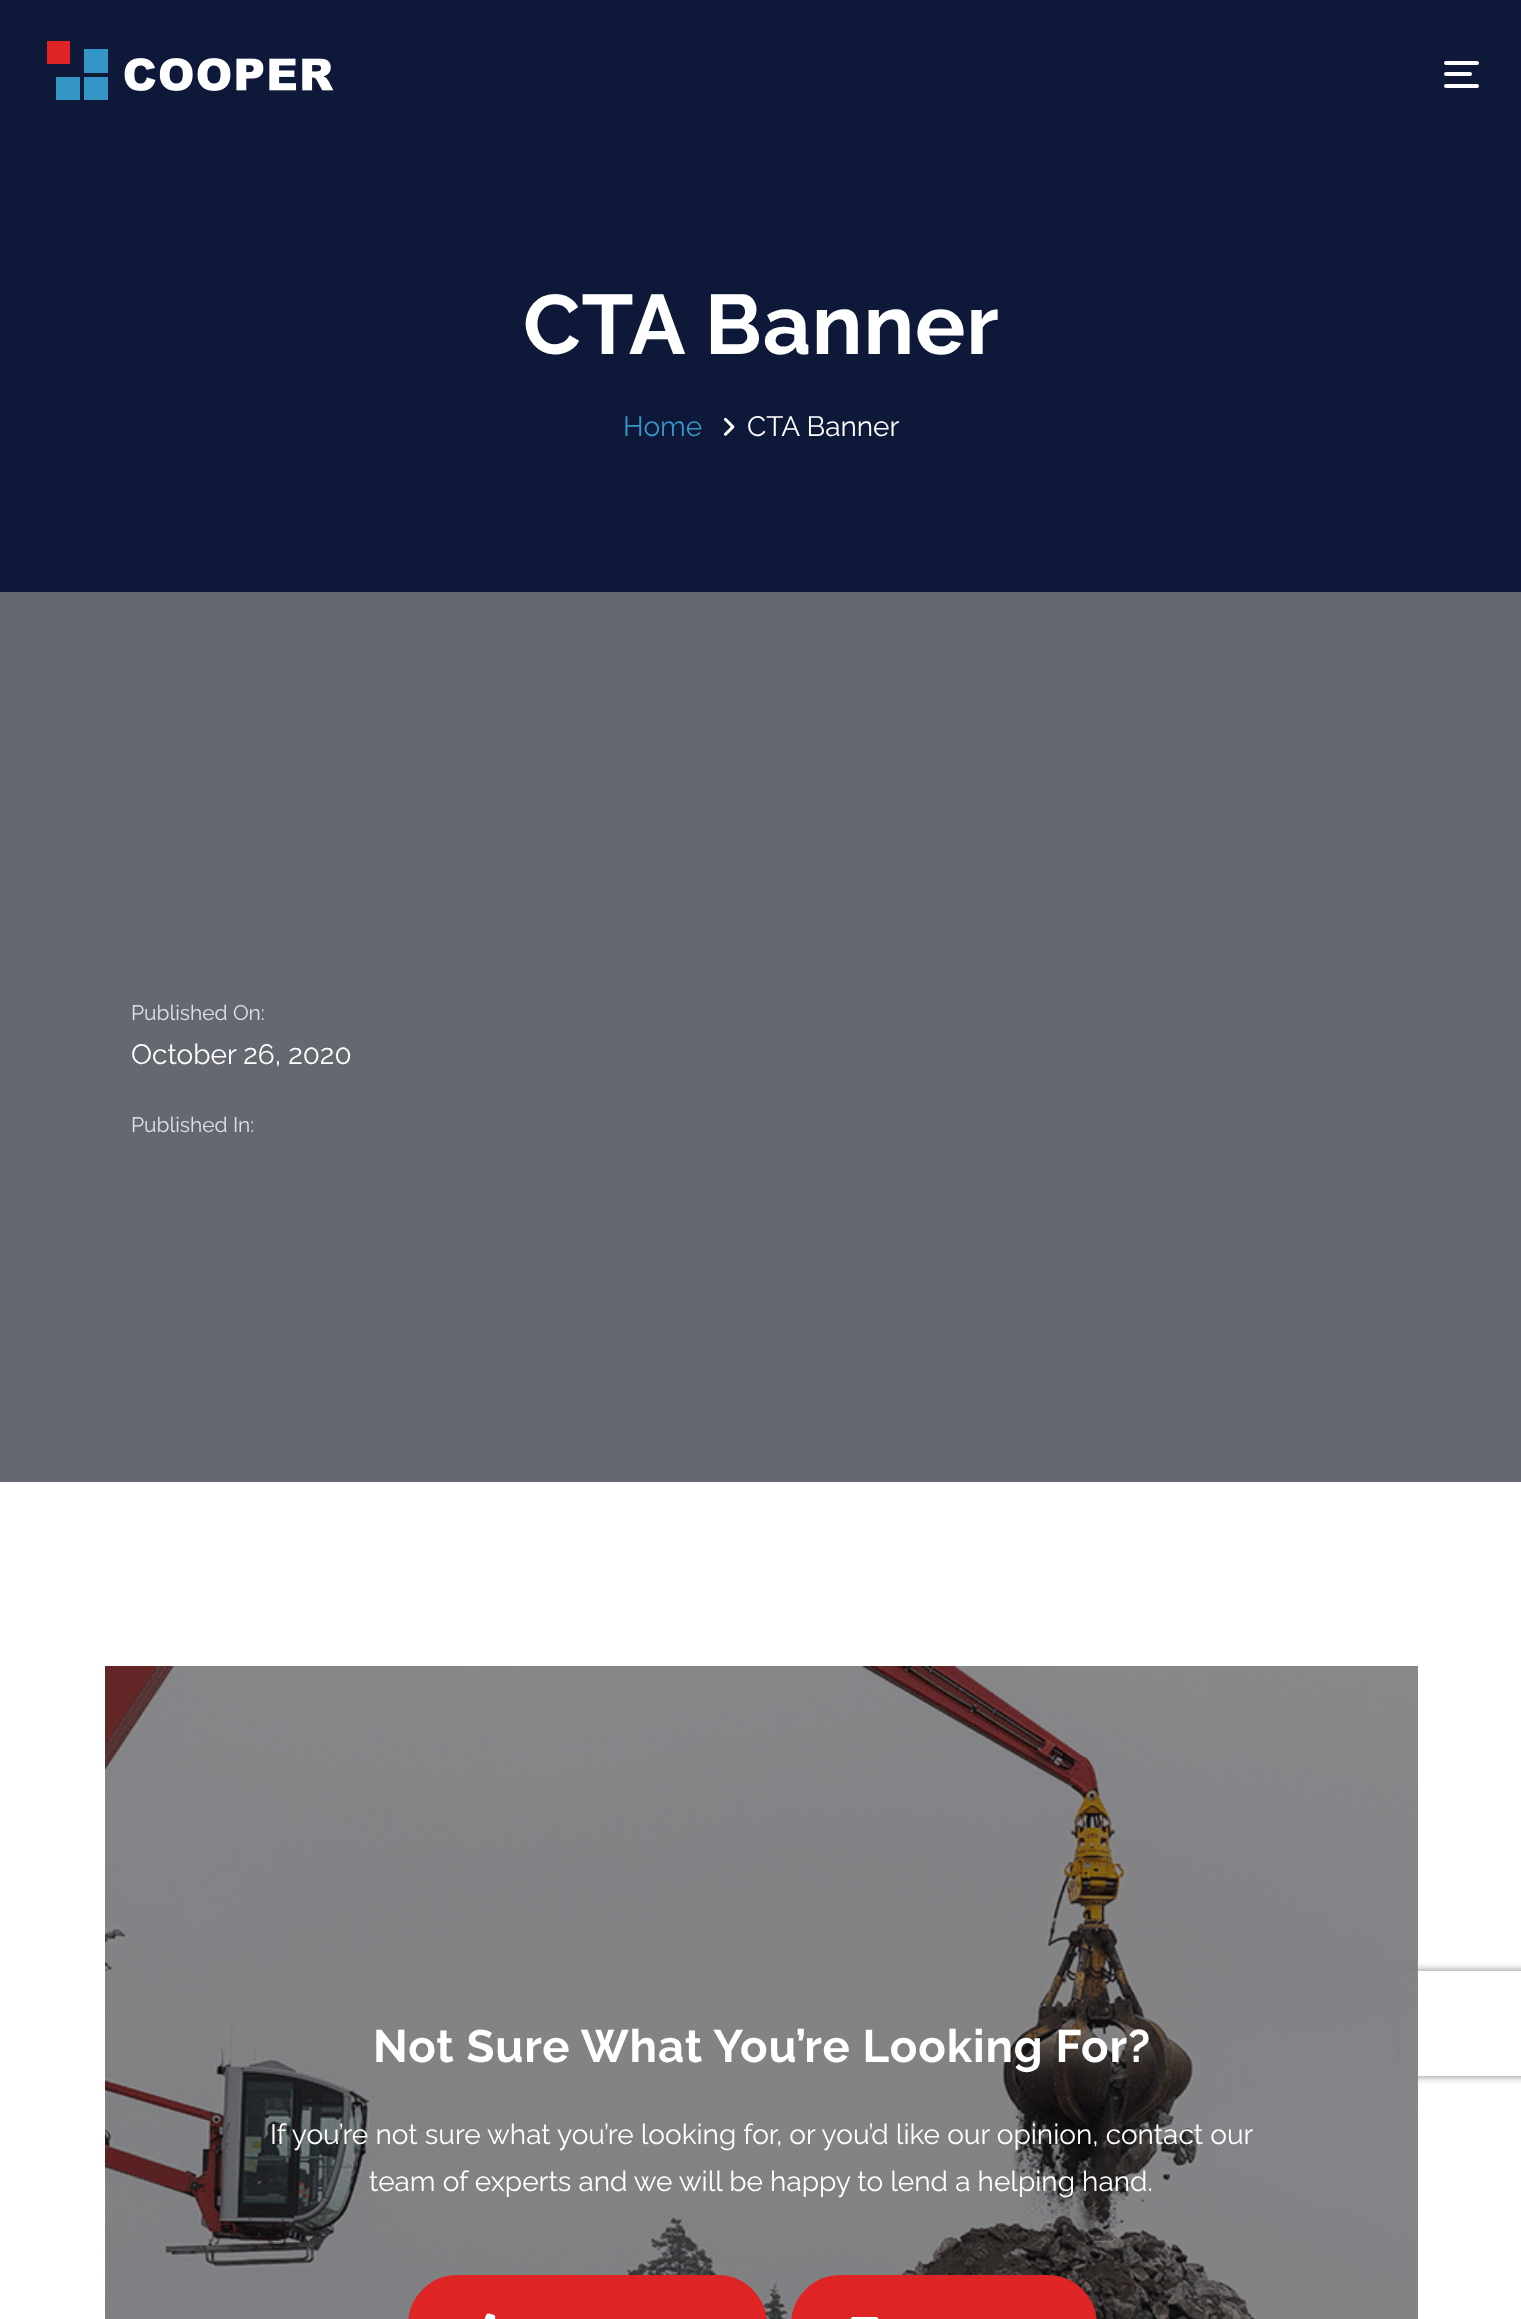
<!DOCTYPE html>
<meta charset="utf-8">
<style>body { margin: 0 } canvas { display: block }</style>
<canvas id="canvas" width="1521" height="2319"></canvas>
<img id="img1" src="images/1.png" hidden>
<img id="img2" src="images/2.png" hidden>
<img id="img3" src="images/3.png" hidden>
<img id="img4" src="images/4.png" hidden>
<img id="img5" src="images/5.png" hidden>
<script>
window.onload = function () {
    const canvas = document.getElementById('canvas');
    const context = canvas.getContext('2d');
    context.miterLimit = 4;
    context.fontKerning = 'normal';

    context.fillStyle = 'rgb(255, 255, 255)';
    context.fillRect(0, 0, 1521, 2319);
    context.fillStyle = 'rgb(140, 140, 140)';
    context.fillRect(1417, 1666, 1, 653);
    context.fillStyle = 'rgb(14, 25, 57)';
    context.fillRect(0, 0, 1521, 592);
    context.drawImage(document.getElementById('img1'), 47, 41, 287, 59);
    context.fillStyle = 'rgb(255, 255, 255)';
    context.beginPath();
    context.roundRect(1444, 61, 35, 4, 2);
    context.fill();
    context.beginPath();
    context.roundRect(1444, 72, 28, 4, 2);
    context.fill();
    context.beginPath();
    context.roundRect(1444, 84, 35, 4, 2);
    context.fill();
    context.drawImage(document.getElementById('img2'), 724, 417, 11, 19);
    context.fillStyle = 'rgb(102, 104, 113)';
    context.fillRect(0, 592, 1521, 890);
    context.drawImage(document.getElementById('img3'), 105, 1666, 1313, 653);
    context.fillStyle = 'rgb(222, 36, 37)';
    context.beginPath();
    context.roundRect(409, 2276, 357, 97, 51.5);
    context.fill();
    context.strokeStyle = 'rgb(222, 36, 37)';
    context.lineWidth = 2;
    context.stroke();
    context.drawImage(document.getElementById('img4'), 484, 2313, 12, 6);
    context.beginPath();
    context.roundRect(792, 2276, 304, 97, 51.5);
    context.fill();
    context.stroke();
    context.drawImage(document.getElementById('img5'), 850, 2317, 29, 2);
    context.save();
    context.beginPath();
    context.moveTo(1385, 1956);
    context.lineTo(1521, 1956);
    context.lineTo(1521, 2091);
    context.lineTo(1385, 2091);
    context.closePath();
    context.moveTo(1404, 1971);
    context.lineTo(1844, 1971);
    context.bezierCurveTo(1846, 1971, 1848, 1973, 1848, 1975);
    context.lineTo(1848, 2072);
    context.bezierCurveTo(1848, 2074, 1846, 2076, 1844, 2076);
    context.lineTo(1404, 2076);
    context.bezierCurveTo(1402, 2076, 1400, 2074, 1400, 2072);
    context.lineTo(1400, 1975);
    context.bezierCurveTo(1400, 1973, 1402, 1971, 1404, 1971);
    context.closePath();
    context.clip('evenodd');
    context.fillStyle = 'rgb(128, 128, 128)';
    context.filter = 'blur(4.5px)';
    context.beginPath();
    context.roundRect(1400, 1971, 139, 105, 4);
    context.fill();
    context.filter = 'none';
    context.restore();
    context.letterSpacing = '0.9px';
    context.font = 'bold 84px Raleway';
    context.fillStyle = 'rgb(255, 255, 255)';
    context.fillText('CTA Banner', 523, 354);
    context.letterSpacing = '0px';
    context.font = '28px Raleway';
    context.fillStyle = 'rgb(55, 148, 199)';
    context.fillText('Home', 623, 436);
    context.fillStyle = 'rgb(255, 255, 255)';
    context.fillText('CTA Banner', 747, 436);
    context.font = '21px Raleway';
    context.fillStyle = 'rgb(224, 225, 227)';
    context.fillText('Published On:', 131, 1020);
    context.font = '28px Raleway';
    context.fillStyle = 'rgb(255, 255, 255)';
    context.fillText('October 26, 2020', 131, 1064);
    context.font = '21px Raleway';
    context.fillStyle = 'rgb(224, 225, 227)';
    context.fillText('Published In:', 131, 1132);
    context.letterSpacing = '0.9px';
    context.font = 'bold 45.5px Raleway';
    context.fillStyle = 'rgb(255, 255, 255)';
    context.fillText('Not Sure What You’re Looking For?', 373, 2062);
    context.letterSpacing = '0px';
    context.font = '28px Raleway';
    context.fillText('If you’re not sure what you’re looking for, or you’d like our opinion, contact our', 270, 2144);
    context.fillText('team of experts and we will be happy to lend a helping hand.', 369, 2191);
};
</script>
